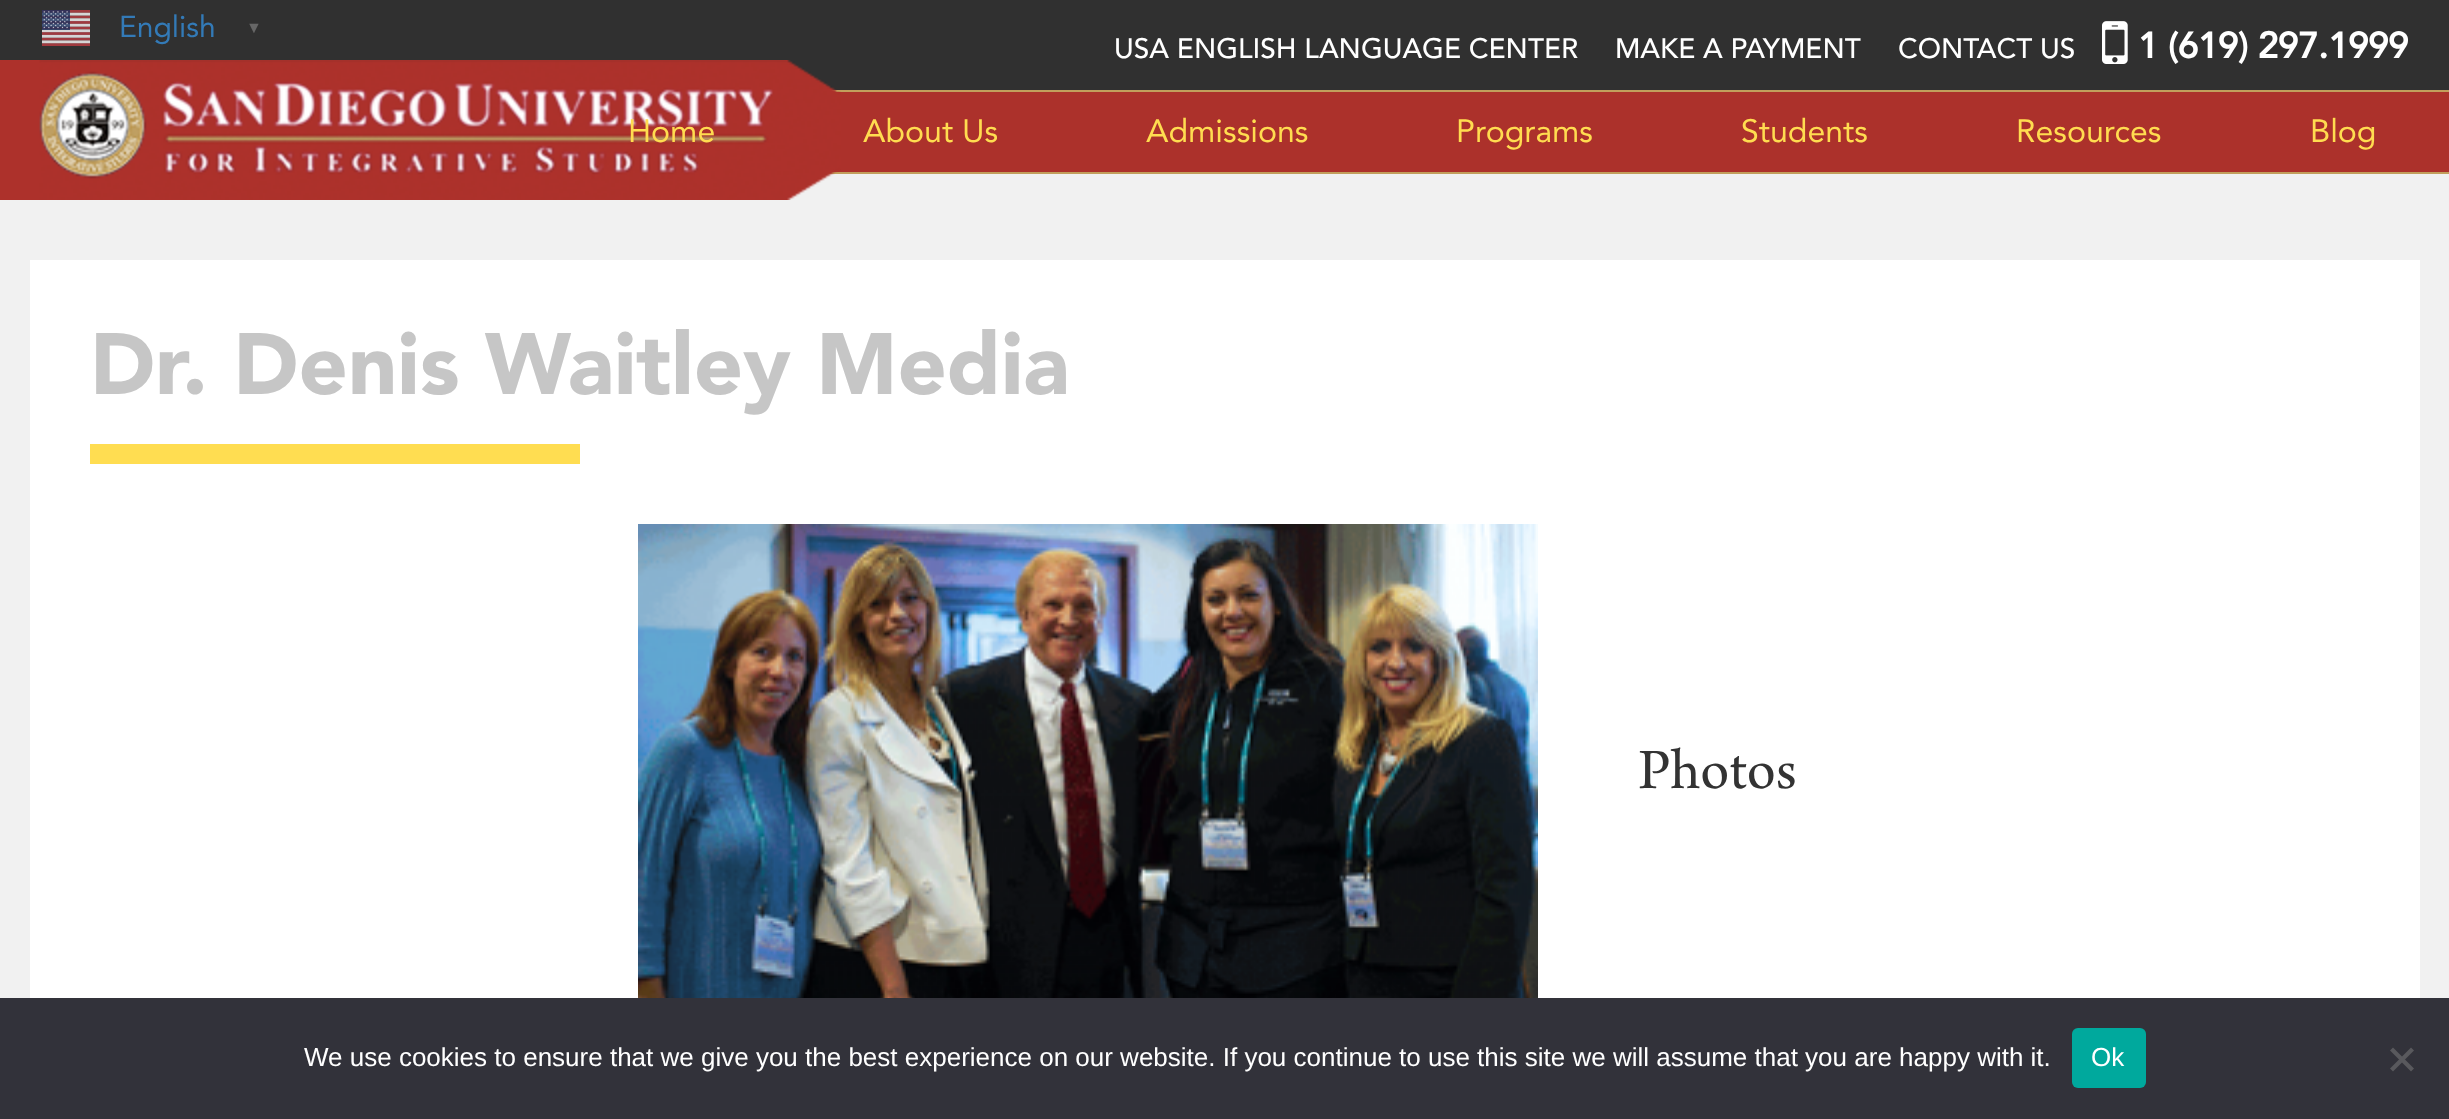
<!DOCTYPE html>
<meta charset="utf-8">
<style>body { margin: 0 } canvas { display: block }</style>
<canvas id="canvas" width="2449" height="1119"></canvas>
<img id="img1" src="images/1.png" hidden>
<img id="img2" src="images/2.png" hidden>
<img id="img3" src="images/3.png" hidden>
<img id="img4" src="images/4.png" hidden>
<script>
window.onload = function () {
    const canvas = document.getElementById('canvas');
    const context = canvas.getContext('2d');
    context.miterLimit = 4;
    context.fontKerning = 'normal';

    context.fillStyle = 'rgb(241, 241, 241)';
    context.fillRect(0, 0, 2449, 1119);
    context.fillStyle = 'rgb(48, 48, 48)';
    context.fillRect(0, 0, 2449, 90);
    context.drawImage(document.getElementById('img1'), 42, 10, 48, 36);
    context.drawImage(document.getElementById('img2'), 2102, 21, 26, 43);
    context.fillStyle = 'rgb(172, 49, 43)';
    context.fillRect(831, 92, 1618, 80);
    context.fillStyle = 'rgb(194, 159, 92)';
    context.fillRect(831, 90, 1618, 2);
    context.fillRect(827, 172, 1622, 2);
    context.drawImage(document.getElementById('img3'), 0, 60, 841, 140);
    context.fillStyle = 'rgb(255, 255, 255)';
    context.fillRect(30, 260, 2390, 738);
    context.fillStyle = 'rgb(255, 221, 81)';
    context.fillRect(90, 444, 490, 20);
    context.drawImage(document.getElementById('img4'), 638, 524, 900, 474);
    context.fillStyle = 'rgb(50, 50, 58)';
    context.fillRect(0, 998, 2449, 121);
    context.fillStyle = 'rgb(0, 169, 157)';
    context.beginPath();
    context.roundRect(2072, 1028, 74, 60, 6);
    context.fill();
    context.fillStyle = 'rgb(89, 89, 93)';
    context.beginPath();
    context.moveTo(2411, 1047.5);
    context.lineTo(2414, 1050.5);
    context.lineTo(2393, 1071.5);
    context.lineTo(2390, 1068.5);
    context.closePath();
    context.fill();
    context.beginPath();
    context.moveTo(2390, 1050.5);
    context.lineTo(2393, 1047.5);
    context.lineTo(2414, 1068.5);
    context.lineTo(2411, 1071.5);
    context.closePath();
    context.fill();
    context.font = '30px Avenir';
    context.fillStyle = 'rgb(51, 122, 183)';
    context.fillText('English', 119, 37);
    context.font = 'bold 16px Liberation Serif';
    context.fillStyle = 'rgb(102, 102, 102)';
    context.fillText('▼', 246, 33);
    context.font = '500 28px Avenir';
    context.fillStyle = 'rgb(255, 255, 255)';
    context.fillText('USA ENGLISH LANGUAGE CENTER', 1114, 58);
    context.fillText('MAKE A PAYMENT', 1615, 58);
    context.fillText('CONTACT US', 1898, 58);
    context.font = 'bold 36px Avenir';
    context.fillText('1 (619) 297.1999', 2138, 58);
    context.font = '32px Avenir';
    context.fillStyle = 'rgb(255, 220, 80)';
    context.fillText('Home', 628, 142);
    context.fillText('About Us', 863, 142);
    context.fillText('Admissions', 1146, 142);
    context.fillText('Programs', 1456, 142);
    context.fillText('Students', 1741, 142);
    context.fillText('Resources', 2016, 142);
    context.fillText('Blog', 2310, 142);
    context.font = '900 86px Avenir';
    context.fillStyle = 'rgb(198, 198, 198)';
    context.fillText('Dr. Denis Waitley Media', 90, 394);
    context.font = '60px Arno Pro';
    context.fillStyle = 'rgb(51, 51, 51)';
    context.fillText('Photos', 1638, 788);
    context.font = '26px Liberation Sans';
    context.fillStyle = 'rgb(255, 255, 255)';
    context.fillText('We use cookies to ensure that we give you the best experience on our website. If you continue to use this site we will assume that you are happy with it.', 304, 1066);
    context.fillText('Ok', 2091, 1066);
};
</script>
